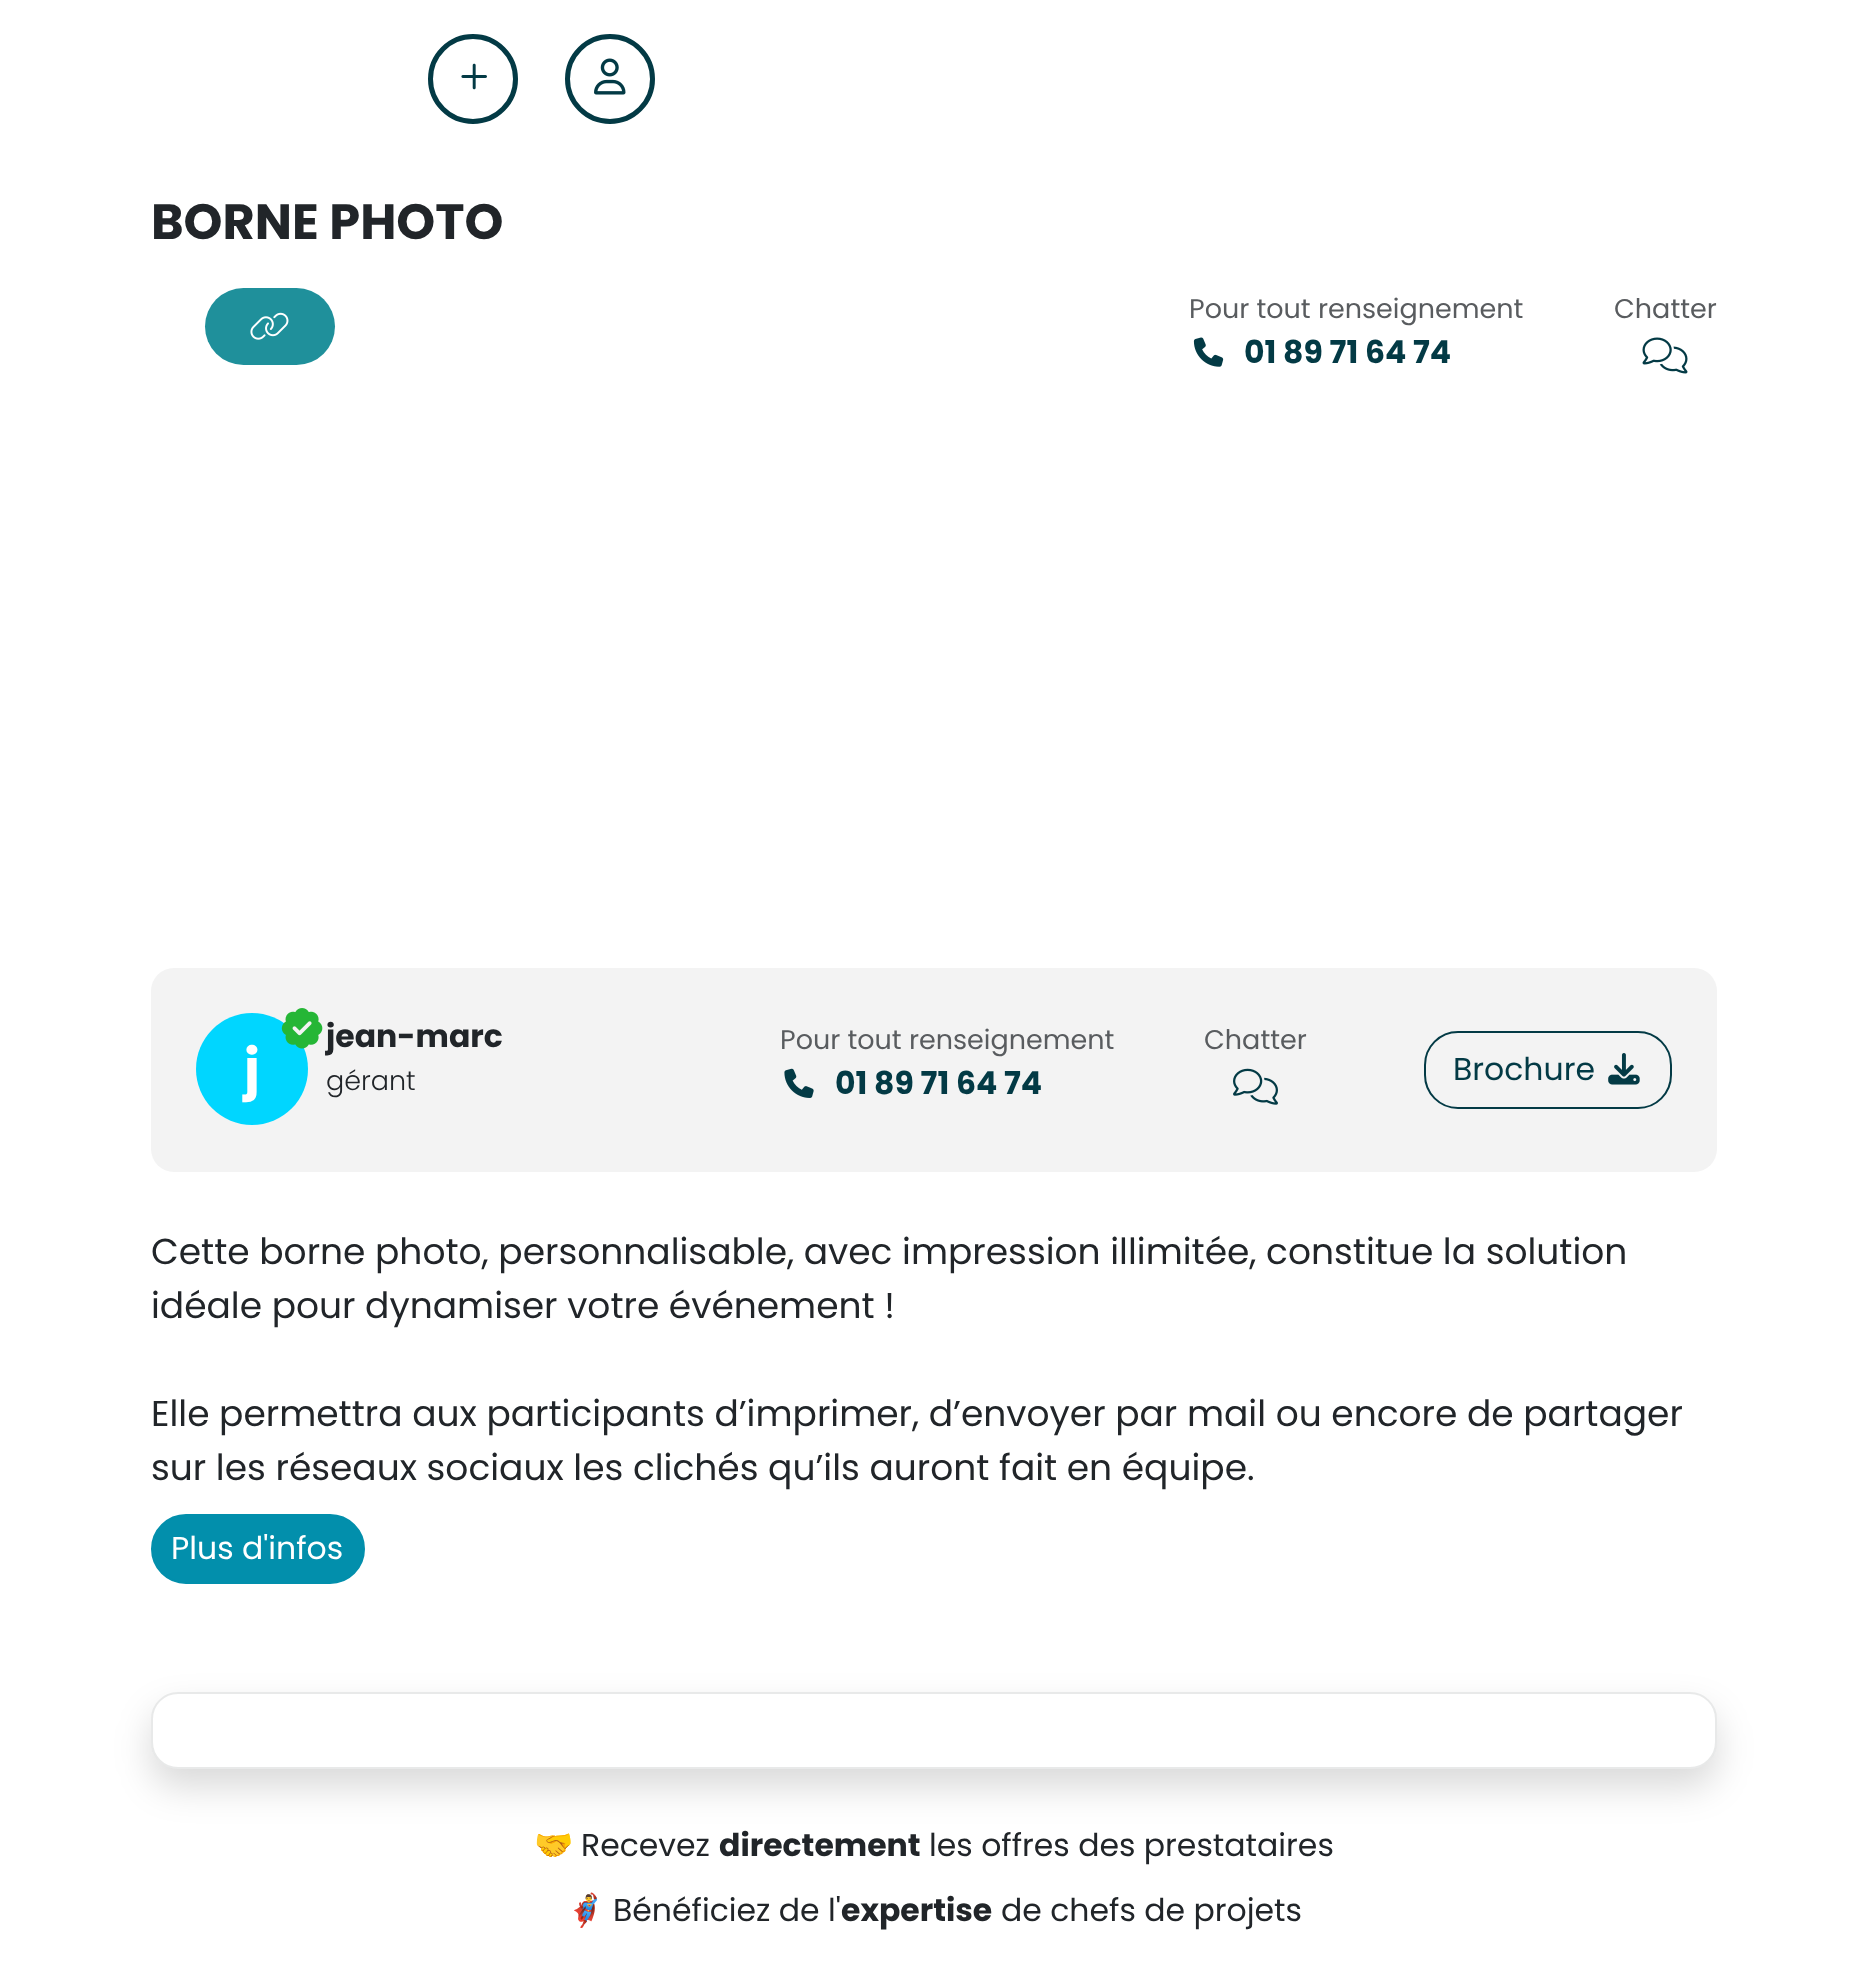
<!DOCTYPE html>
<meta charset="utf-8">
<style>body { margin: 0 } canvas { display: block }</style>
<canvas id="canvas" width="1866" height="1975"></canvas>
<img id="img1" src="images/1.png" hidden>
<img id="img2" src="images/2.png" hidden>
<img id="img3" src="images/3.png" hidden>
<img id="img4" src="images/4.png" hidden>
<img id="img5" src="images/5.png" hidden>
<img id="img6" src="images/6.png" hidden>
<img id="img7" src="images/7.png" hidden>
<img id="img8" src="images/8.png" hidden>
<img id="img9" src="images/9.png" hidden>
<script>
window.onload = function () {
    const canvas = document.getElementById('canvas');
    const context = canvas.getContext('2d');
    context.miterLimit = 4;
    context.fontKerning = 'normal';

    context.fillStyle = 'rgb(255, 255, 255)';
    context.fillRect(0, 0, 1866, 1975);
    context.beginPath();
    context.arc(473, 79, 42.5, 0, 2 * Math.PI);
    context.strokeStyle = 'rgb(3, 58, 69)';
    context.lineWidth = 5;
    context.stroke();
    context.drawImage(document.getElementById('img1'), 461, 63, 26, 27);
    context.beginPath();
    context.arc(610, 79, 42.5, 0, 2 * Math.PI);
    context.stroke();
    context.drawImage(document.getElementById('img2'), 594, 58, 32, 37);
    context.fillStyle = 'rgb(31, 144, 155)';
    context.beginPath();
    context.roundRect(205, 288, 130, 77, 38.5);
    context.fill();
    context.drawImage(document.getElementById('img3'), 250, 312, 39, 28);
    context.drawImage(document.getElementById('img4'), 1193, 337, 31, 30);
    context.drawImage(document.getElementById('img5'), 1642, 337, 46, 37);
    context.fillStyle = 'rgb(243, 243, 243)';
    context.beginPath();
    context.roundRect(151, 968, 1566, 204, 23);
    context.fill();
    context.fillStyle = 'rgb(0, 214, 255)';
    context.beginPath();
    context.arc(252, 1069, 56, 0, 2 * Math.PI);
    context.fill();
    context.drawImage(document.getElementById('img6'), 281, 1008, 42, 41);
    context.drawImage(document.getElementById('img7'), 784, 1068, 30, 30);
    context.drawImage(document.getElementById('img8'), 1233, 1068, 45, 37);
    context.beginPath();
    context.roundRect(1425, 1032, 246, 76, 33);
    context.lineWidth = 2;
    context.stroke();
    context.drawImage(document.getElementById('img9'), 1608, 1053, 32, 32);
    context.fillStyle = 'rgb(2, 143, 172)';
    context.beginPath();
    context.roundRect(152, 1515, 212, 68, 34);
    context.fill();
    context.strokeStyle = 'rgb(2, 143, 172)';
    context.stroke();
    context.fillStyle = 'rgba(0, 0, 0, 0.15)';
    context.filter = 'blur(18px)';
    context.beginPath();
    context.roundRect(151, 1710, 1566, 77, 27);
    context.fill();
    context.filter = 'none';
    context.fillStyle = 'rgb(255, 255, 255)';
    context.beginPath();
    context.roundRect(151, 1692, 1566, 77, 27);
    context.fill();
    context.beginPath();
    context.roundRect(152, 1693, 1564, 75, 26);
    context.strokeStyle = 'rgba(33, 37, 41, 0.1)';
    context.stroke();
    context.font = 'bold 49.5px Poppins';
    context.fillStyle = 'rgb(33, 37, 41)';
    context.fillText('BORNE PHOTO', 151, 239);
    context.font = '27px Poppins';
    context.fillStyle = 'rgb(89, 92, 95)';
    context.fillText('Pour tout renseignement', 1189, 318);
    context.font = 'bold 31.5px Poppins';
    context.fillStyle = 'rgb(3, 58, 69)';
    context.fillText('01 89 71 64 74', 1244, 363);
    context.font = '27px Poppins';
    context.fillStyle = 'rgb(89, 92, 95)';
    context.fillText('Chatter', 1614, 318);
    context.font = 'bold 54px Poppins';
    context.fillStyle = 'rgb(255, 255, 255)';
    context.fillText('j', 244, 1088);
    context.font = 'bold 31.5px Poppins';
    context.fillStyle = 'rgb(33, 37, 41)';
    context.fillText('jean-marc', 326, 1047);
    context.font = '300 27px Poppins';
    context.fillText('gérant', 326, 1090);
    context.font = '27px Poppins';
    context.fillStyle = 'rgb(89, 92, 95)';
    context.fillText('Pour tout renseignement', 780, 1049);
    context.font = 'bold 31.5px Poppins';
    context.fillStyle = 'rgb(3, 58, 69)';
    context.fillText('01 89 71 64 74', 835, 1094);
    context.font = '27px Poppins';
    context.fillStyle = 'rgb(89, 92, 95)';
    context.fillText('Chatter', 1204, 1049);
    context.font = '31.5px Poppins';
    context.fillStyle = 'rgb(3, 58, 69)';
    context.fillText('Brochure', 1453, 1080);
    context.font = '36px Poppins';
    context.fillStyle = 'rgb(33, 37, 41)';
    context.fillText('Cette borne photo, personnalisable, avec impression illimitée, constitue la solution', 151, 1264);
    context.fillText('idéale pour dynamiser votre événement !', 151, 1318);
    context.fillText('Elle permettra aux participants d’imprimer, d’envoyer par mail ou encore de partager', 151, 1426);
    context.fillText('sur les réseaux sociaux les clichés qu’ils auront fait en équipe.', 151, 1480);
    context.font = '31.5px Poppins';
    context.fillStyle = 'rgb(255, 255, 255)';
    context.fillText('Plus d\'infos', 171, 1559);
    context.font = '31.5px Noto Color Emoji';
    context.fillStyle = 'rgb(33, 37, 41)';
    context.fillText('🤝', 534, 1856);
    context.font = '31.5px Poppins';
    context.fillText('Recevez', 581, 1856);
    context.font = 'bold 31.5px Poppins';
    context.fillText('directement', 719, 1856);
    context.font = '31.5px Poppins';
    context.fillText('les offres des prestataires', 929, 1856);
    context.font = '31.5px Noto Color Emoji';
    context.fillText('🦸‍♂️', 566, 1921);
    context.font = '31.5px Poppins';
    context.fillText('Bénéficiez de l\'', 613, 1921);
    context.font = 'bold 31.5px Poppins';
    context.fillText('expertise', 841, 1921);
    context.font = '31.5px Poppins';
    context.fillText('de chefs de projets', 1001, 1921);
};
</script>
